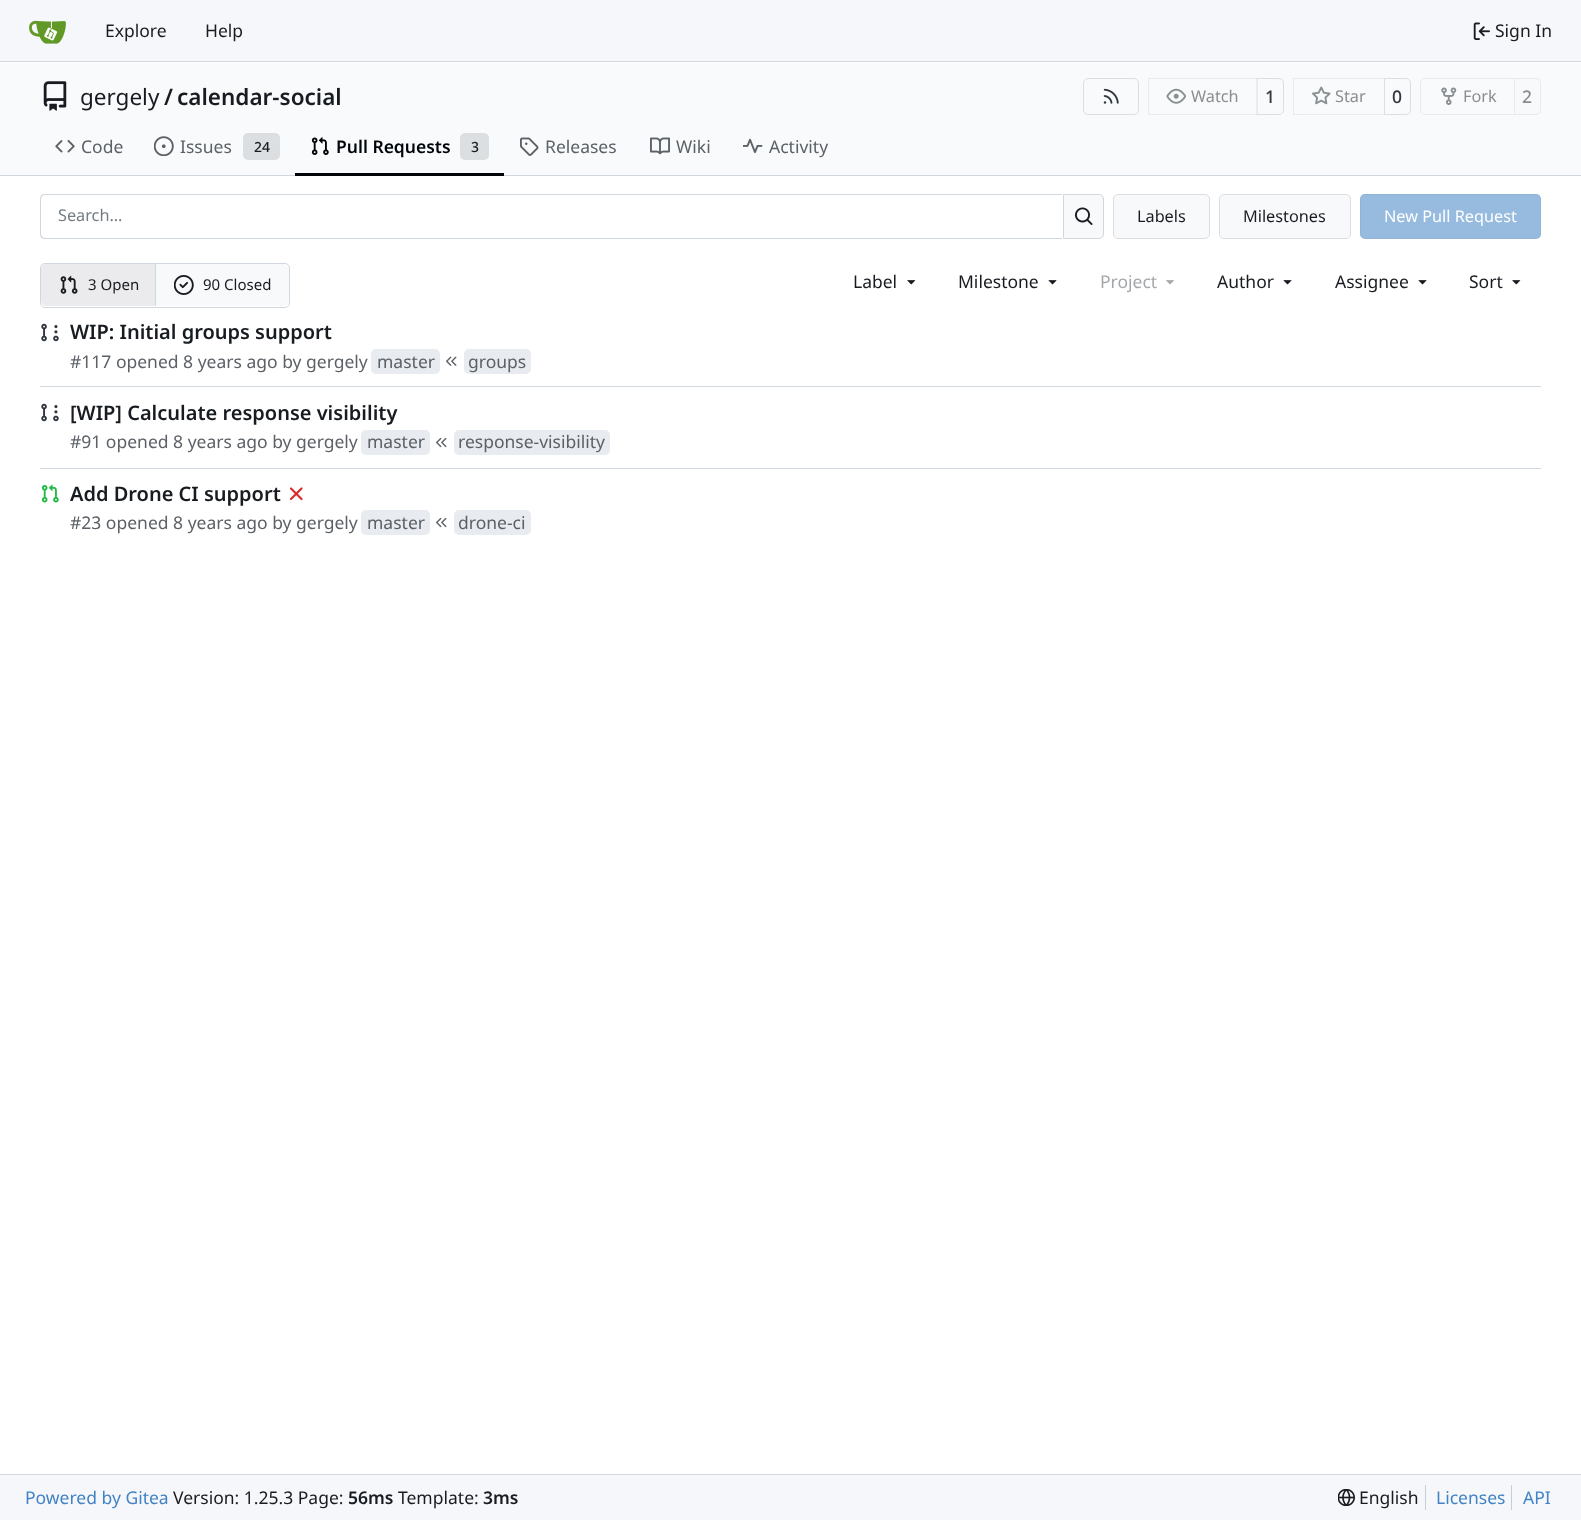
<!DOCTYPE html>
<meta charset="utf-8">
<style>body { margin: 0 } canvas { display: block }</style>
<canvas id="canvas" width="1581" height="1520"></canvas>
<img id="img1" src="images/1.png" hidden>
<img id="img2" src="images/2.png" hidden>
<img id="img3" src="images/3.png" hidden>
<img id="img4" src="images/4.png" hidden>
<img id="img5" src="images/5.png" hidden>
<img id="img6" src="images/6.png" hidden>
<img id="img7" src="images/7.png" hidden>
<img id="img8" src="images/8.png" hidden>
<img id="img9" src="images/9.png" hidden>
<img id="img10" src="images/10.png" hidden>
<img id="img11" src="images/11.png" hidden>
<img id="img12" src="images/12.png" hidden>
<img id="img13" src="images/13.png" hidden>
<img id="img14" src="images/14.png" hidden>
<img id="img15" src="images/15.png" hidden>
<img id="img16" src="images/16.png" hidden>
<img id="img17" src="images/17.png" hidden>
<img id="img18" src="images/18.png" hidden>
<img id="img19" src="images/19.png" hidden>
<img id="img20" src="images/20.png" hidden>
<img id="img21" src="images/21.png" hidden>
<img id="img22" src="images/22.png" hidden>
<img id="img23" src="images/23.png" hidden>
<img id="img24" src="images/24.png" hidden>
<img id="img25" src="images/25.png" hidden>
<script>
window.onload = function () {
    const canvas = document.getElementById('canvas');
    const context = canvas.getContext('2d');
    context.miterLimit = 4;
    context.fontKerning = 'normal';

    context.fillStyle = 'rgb(255, 255, 255)';
    context.fillRect(0, 0, 1581, 1520);
    context.fillStyle = 'rgb(246, 247, 250)';
    context.fillRect(0, 0, 1581, 61);
    context.fillStyle = 'rgb(208, 215, 222)';
    context.fillRect(0, 61, 1581, 1);
    context.drawImage(document.getElementById('img1'), 29, 20, 37, 24);
    context.drawImage(document.getElementById('img2'), 1473, 22, 17, 18);
    context.fillStyle = 'rgb(249, 250, 251)';
    context.fillRect(0, 63, 1581, 112);
    context.drawImage(document.getElementById('img3'), 43, 81, 24, 30);
    context.beginPath();
    context.roundRect(1083.5, 78.5, 55, 36, 4.5);
    context.strokeStyle = 'rgb(221, 222, 225)';
    context.stroke();
    context.drawImage(document.getElementById('img4'), 1103, 88, 16, 16);
    context.beginPath();
    context.roundRect(1256.5, 78.5, 27, 36, [0, 4.5, 4.5, 0]);
    context.stroke();
    context.fillStyle = 'rgba(248, 249, 251, 0.55)';
    context.beginPath();
    context.roundRect(1148, 78, 110, 37, [5, 0, 0, 5]);
    context.fill();
    context.strokeStyle = 'rgba(0, 0, 23, 0.06)';
    context.strokeRect(1148.5, 78.5, 109, 36);
    context.drawImage(document.getElementById('img5'), 1166, 88, 20, 16);
    context.beginPath();
    context.roundRect(1384.5, 78.5, 26, 36, [0, 4.5, 4.5, 0]);
    context.strokeStyle = 'rgb(221, 222, 225)';
    context.stroke();
    context.beginPath();
    context.roundRect(1293, 78, 92, 37, [5, 0, 0, 5]);
    context.fill();
    context.strokeStyle = 'rgba(0, 0, 23, 0.06)';
    context.strokeRect(1293.5, 78.5, 91, 36);
    context.drawImage(document.getElementById('img6'), 1312, 86, 19, 19);
    context.beginPath();
    context.roundRect(1420.5, 78.5, 94, 36, [4.5, 0, 0, 4.5]);
    context.strokeStyle = 'rgb(233, 234, 237)';
    context.stroke();
    context.drawImage(document.getElementById('img7'), 1441, 87, 16, 18);
    context.fillStyle = 'rgb(248, 249, 251)';
    context.beginPath();
    context.roundRect(1514.5, 78.5, 26, 36, [0, 4.5, 4.5, 0]);
    context.fill();
    context.stroke();
    context.drawImage(document.getElementById('img8'), 55, 140, 20, 13);
    context.drawImage(document.getElementById('img9'), 154, 136, 20, 20);
    context.fillStyle = 'rgb(219, 223, 226)';
    context.beginPath();
    context.roundRect(243, 133, 37, 27, 5);
    context.fill();
    context.fillStyle = 'rgb(208, 215, 222)';
    context.fillRect(0, 175, 1581, 1);
    context.fillStyle = 'rgb(1, 5, 10)';
    context.fillRect(295, 173, 209, 3);
    context.drawImage(document.getElementById('img10'), 311, 137, 18, 18);
    context.fillStyle = 'rgb(219, 223, 226)';
    context.beginPath();
    context.roundRect(460, 133, 29, 27, 5);
    context.fill();
    context.drawImage(document.getElementById('img11'), 520, 137, 19, 19);
    context.drawImage(document.getElementById('img12'), 650, 137, 20, 18);
    context.drawImage(document.getElementById('img13'), 743, 138, 20, 15);
    context.fillStyle = 'rgb(208, 215, 222)';
    context.beginPath();
    context.moveTo(45, 194);
    context.lineTo(1062, 194);
    context.lineTo(1062, 239);
    context.lineTo(45, 239);
    context.bezierCurveTo(42, 239, 40, 237, 40, 234);
    context.lineTo(40, 199);
    context.bezierCurveTo(40, 196, 42, 194, 45, 194);
    context.closePath();
    context.moveTo(45, 195);
    context.lineTo(1062, 195);
    context.lineTo(1062, 238);
    context.lineTo(45, 238);
    context.bezierCurveTo(43, 238, 41, 236, 41, 234);
    context.lineTo(41, 199);
    context.bezierCurveTo(41, 197, 43, 195, 45, 195);
    context.closePath();
    context.fill('evenodd');
    context.fillStyle = 'rgb(248, 249, 251)';
    context.beginPath();
    context.roundRect(1063.5, 194.5, 40, 44, [0, 4.5, 4.5, 0]);
    context.fill();
    context.strokeStyle = 'rgb(208, 215, 222)';
    context.stroke();
    context.drawImage(document.getElementById('img14'), 1075, 207, 18, 18);
    context.beginPath();
    context.roundRect(1113, 194, 97, 45, 5);
    context.fill();
    context.beginPath();
    context.roundRect(1113.5, 194.5, 96, 44, 4.5);
    context.strokeStyle = 'rgba(0, 0, 23, 0.11)';
    context.stroke();
    context.beginPath();
    context.roundRect(1219, 194, 132, 45, 5);
    context.fill();
    context.beginPath();
    context.roundRect(1219.5, 194.5, 131, 44, 4.5);
    context.stroke();
    context.fillStyle = 'rgb(151, 187, 223)';
    context.beginPath();
    context.roundRect(1360, 194, 181, 45, 5);
    context.fill();
    context.beginPath();
    context.roundRect(1360.5, 194.5, 180, 44, 4.5);
    context.strokeStyle = 'rgba(115, 115, 127, 0.11)';
    context.stroke();
    context.beginPath();
    context.roundRect(40.5, 263.5, 249, 44, 4.5);
    context.strokeStyle = 'rgb(208, 215, 222)';
    context.stroke();
    context.fillStyle = 'rgba(0, 0, 23, 0.08)';
    context.beginPath();
    context.roundRect(41, 264, 115, 42, [5, 0, 0, 5]);
    context.fill();
    context.drawImage(document.getElementById('img15'), 60, 275, 18, 19);
    context.fillStyle = 'rgb(208, 215, 222)';
    context.fillRect(155, 264, 1, 42);
    context.fillStyle = 'rgb(248, 249, 251)';
    context.beginPath();
    context.roundRect(156, 264, 133, 42, [0, 5, 5, 0]);
    context.fill();
    context.drawImage(document.getElementById('img16'), 174, 275, 20, 20);
    context.drawImage(document.getElementById('img17'), 907, 280, 9, 5);
    context.drawImage(document.getElementById('img18'), 1048, 280, 9, 5);
    context.drawImage(document.getElementById('img19'), 1166, 280, 8, 5);
    context.drawImage(document.getElementById('img18'), 1283, 280, 9, 5);
    context.drawImage(document.getElementById('img18'), 1418, 280, 9, 5);
    context.drawImage(document.getElementById('img17'), 1512, 280, 9, 5);
    context.drawImage(document.getElementById('img20'), 41, 323, 18, 19);
    context.fillStyle = 'rgb(232, 235, 239)';
    context.beginPath();
    context.roundRect(371, 349, 69, 25, 5);
    context.fill();
    context.drawImage(document.getElementById('img21'), 446, 356, 11, 10);
    context.beginPath();
    context.roundRect(464, 349, 67, 25, 5);
    context.fill();
    context.fillStyle = 'rgb(208, 215, 222)';
    context.fillRect(40, 386, 1501, 1);
    context.drawImage(document.getElementById('img20'), 41, 403, 18, 19);
    context.fillStyle = 'rgb(232, 235, 239)';
    context.beginPath();
    context.roundRect(361, 430, 69, 25, 5);
    context.fill();
    context.drawImage(document.getElementById('img22'), 436, 437, 11, 11);
    context.beginPath();
    context.roundRect(454, 430, 156, 25, 5);
    context.fill();
    context.fillStyle = 'rgb(208, 215, 222)';
    context.fillRect(40, 468, 1501, 1);
    context.drawImage(document.getElementById('img23'), 41, 484, 18, 19);
    context.drawImage(document.getElementById('img24'), 289, 487, 14, 14);
    context.fillStyle = 'rgb(232, 235, 239)';
    context.beginPath();
    context.roundRect(361, 510, 69, 25, 5);
    context.fill();
    context.drawImage(document.getElementById('img22'), 436, 517, 11, 11);
    context.beginPath();
    context.roundRect(454, 510, 77, 25, 5);
    context.fill();
    context.fillStyle = 'rgb(246, 247, 250)';
    context.fillRect(0, 1475, 1581, 45);
    context.fillStyle = 'rgb(208, 215, 222)';
    context.fillRect(0, 1474, 1581, 1);
    context.drawImage(document.getElementById('img25'), 1338, 1489, 17, 17);
    context.fillStyle = 'rgb(199, 206, 213)';
    context.fillRect(1425, 1485, 1, 25);
    context.fillRect(1511, 1485, 1, 25);
    context.font = '17.5px Noto Sans';
    context.fillStyle = 'rgb(24, 28, 33)';
    context.fillText('Explore', 105, 37);
    context.fillText('Help', 205, 37);
    context.fillText('Sign In', 1495, 37);
    context.font = '22.5px Noto Sans';
    context.fillText('gergely', 80, 105);
    context.font = '600 22.5px Noto Sans';
    context.fillText('/', 164, 105);
    context.fillText('calendar-social', 177, 105);
    context.font = '16.25px Noto Sans';
    context.fillStyle = 'rgb(138, 142, 145)';
    context.fillText('Watch', 1191, 102);
    context.font = '500 17.5px Noto Sans';
    context.fillStyle = 'rgb(48, 54, 59)';
    context.fillText('1', 1265, 103);
    context.font = '16.25px Noto Sans';
    context.fillStyle = 'rgb(138, 142, 145)';
    context.fillText('Star', 1335, 102);
    context.font = '500 17.5px Noto Sans';
    context.fillStyle = 'rgb(48, 54, 59)';
    context.fillText('0', 1392, 103);
    context.font = '16.25px Noto Sans';
    context.fillStyle = 'rgb(138, 142, 145)';
    context.fillText('Fork', 1463, 102);
    context.font = '500 17.5px Noto Sans';
    context.fillText('2', 1522, 103);
    context.font = '17.5px Noto Sans';
    context.fillStyle = 'rgb(91, 97, 103)';
    context.fillText('Code', 81, 153);
    context.fillText('Issues', 180, 153);
    context.font = '500 14px Noto Sans';
    context.fillStyle = 'rgb(24, 28, 33)';
    context.fillText('24', 254, 152);
    context.font = '600 17.5px Noto Sans';
    context.fillStyle = 'rgb(1, 5, 10)';
    context.fillText('Pull Requests', 336, 153);
    context.font = '500 14px Noto Sans';
    context.fillStyle = 'rgb(24, 28, 33)';
    context.fillText('3', 471, 152);
    context.font = '17.5px Noto Sans';
    context.fillStyle = 'rgb(91, 97, 103)';
    context.fillText('Releases', 545, 153);
    context.fillText('Wiki', 676, 153);
    context.fillText('Activity', 769, 153);
    context.font = '16.25px Noto Sans';
    context.fillStyle = 'rgb(116, 124, 132)';
    context.fillText('Search…', 58, 221);
    context.fillStyle = 'rgb(24, 28, 33)';
    context.fillText('Labels', 1137, 222);
    context.fillText('Milestones', 1243, 222);
    context.fillStyle = 'rgb(255, 255, 255)';
    context.fillText('New Pull Request', 1384, 222);
    context.font = '15px Noto Sans';
    context.fillStyle = 'rgb(24, 28, 33)';
    context.fillText('3 Open', 88, 290);
    context.fillText('90 Closed', 203, 290);
    context.font = '17.5px Noto Sans';
    context.fillText('Label', 853, 288);
    context.fillText('Milestone', 958, 288);
    context.fillStyle = 'rgb(165, 168, 171)';
    context.fillText('Project', 1100, 288);
    context.fillStyle = 'rgb(24, 28, 33)';
    context.fillText('Author', 1217, 288);
    context.fillText('Assignee', 1335, 288);
    context.fillText('Sort', 1469, 288);
    context.font = '600 20px Noto Sans';
    context.fillText('WIP: Initial groups support', 70, 339);
    context.font = '17.5px Noto Sans';
    context.fillStyle = 'rgb(91, 97, 103)';
    context.fillText('#117 opened 8 years ago by gergely', 70, 368);
    context.fillText('master', 377, 368);
    context.fillText('groups', 468, 368);
    context.font = '600 20px Noto Sans';
    context.fillStyle = 'rgb(24, 28, 33)';
    context.fillText('[WIP] Calculate response visibility', 70, 420);
    context.font = '17.5px Noto Sans';
    context.fillStyle = 'rgb(91, 97, 103)';
    context.fillText('#91 opened 8 years ago by gergely', 70, 448);
    context.fillText('master', 367, 448);
    context.fillText('response-visibility', 458, 448);
    context.font = '600 20px Noto Sans';
    context.fillStyle = 'rgb(24, 28, 33)';
    context.fillText('Add Drone CI support', 70, 501);
    context.font = '17.5px Noto Sans';
    context.fillStyle = 'rgb(91, 97, 103)';
    context.fillText('#23 opened 8 years ago by gergely', 70, 529);
    context.fillText('master', 367, 529);
    context.fillText('drone-ci', 458, 529);
    context.fillStyle = 'rgb(65, 131, 196)';
    context.fillText('Powered by Gitea', 25, 1504);
    context.fillStyle = 'rgb(24, 28, 33)';
    context.fillText('Version: 1.25.3 Page:', 173, 1504);
    context.font = '600 17.5px Noto Sans';
    context.fillText('56ms', 348, 1504);
    context.font = '17.5px Noto Sans';
    context.fillText('Template:', 398, 1504);
    context.font = '600 17.5px Noto Sans';
    context.fillText('3ms', 483, 1504);
    context.font = '17.5px Noto Sans';
    context.fillText('English', 1359, 1504);
    context.fillStyle = 'rgb(65, 131, 196)';
    context.fillText('Licenses', 1436, 1504);
    context.fillText('API', 1523, 1504);
};
</script>
